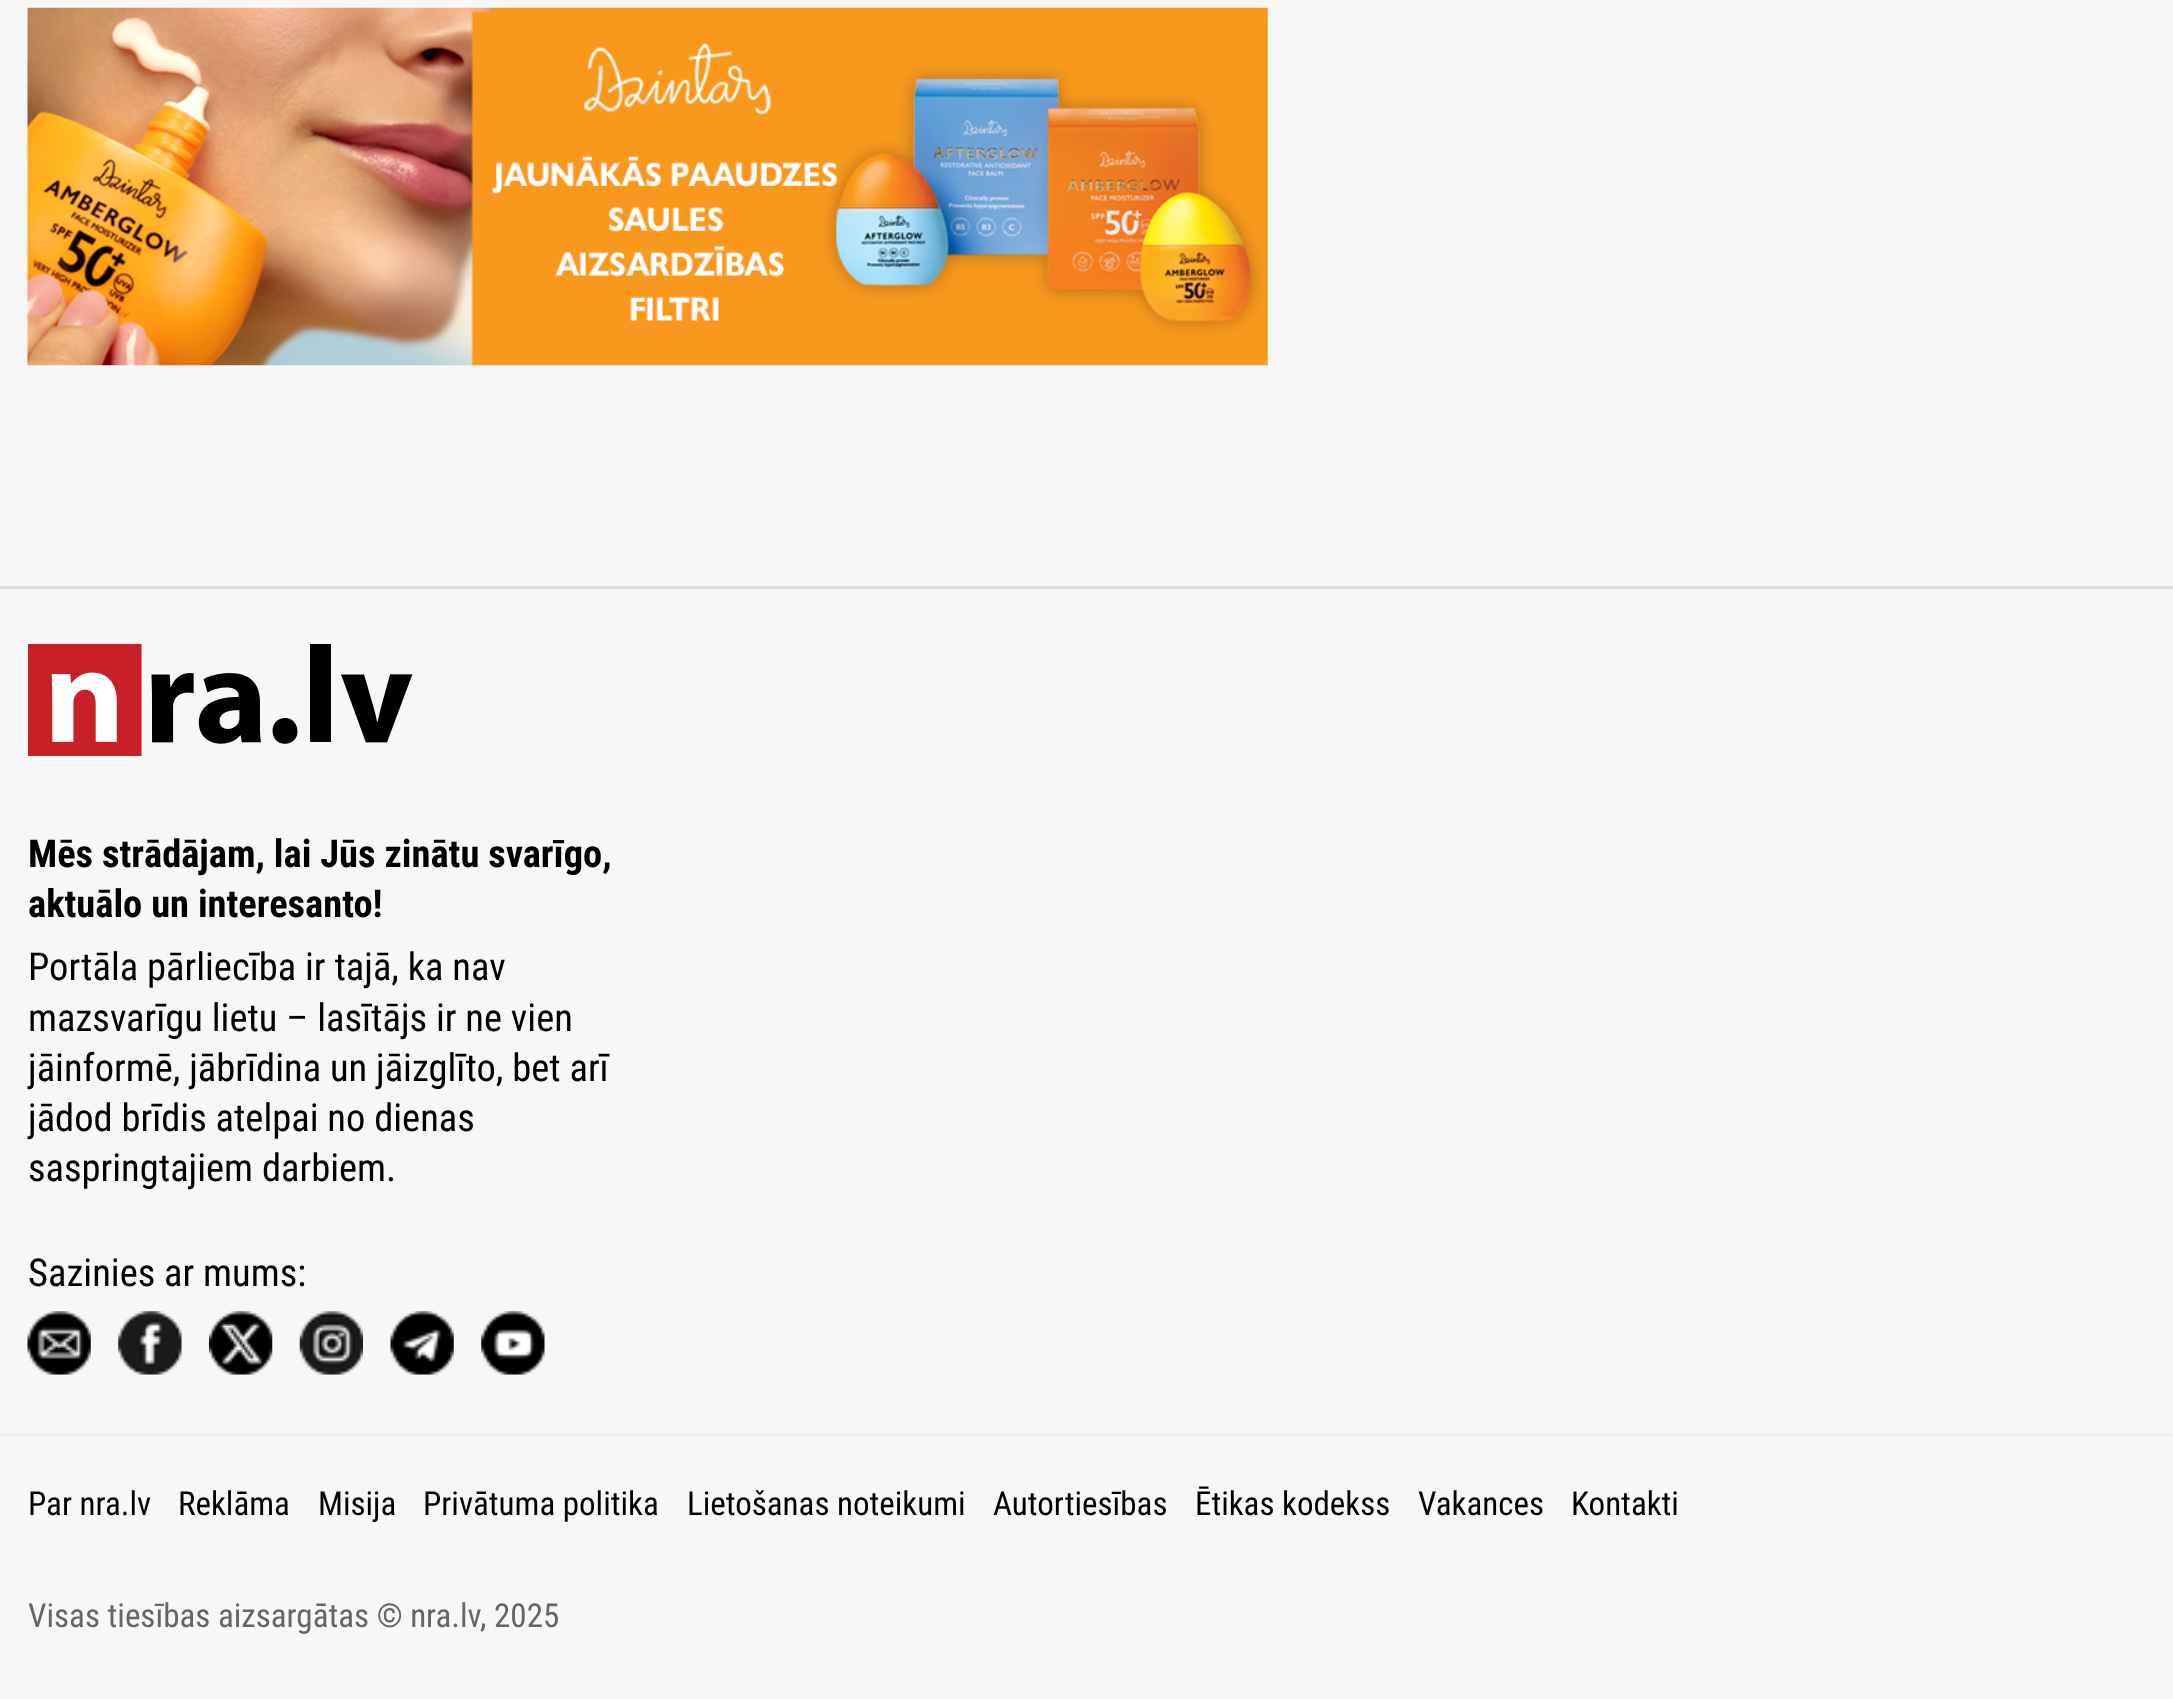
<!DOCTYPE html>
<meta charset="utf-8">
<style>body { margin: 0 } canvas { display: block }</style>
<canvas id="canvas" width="2173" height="1699"></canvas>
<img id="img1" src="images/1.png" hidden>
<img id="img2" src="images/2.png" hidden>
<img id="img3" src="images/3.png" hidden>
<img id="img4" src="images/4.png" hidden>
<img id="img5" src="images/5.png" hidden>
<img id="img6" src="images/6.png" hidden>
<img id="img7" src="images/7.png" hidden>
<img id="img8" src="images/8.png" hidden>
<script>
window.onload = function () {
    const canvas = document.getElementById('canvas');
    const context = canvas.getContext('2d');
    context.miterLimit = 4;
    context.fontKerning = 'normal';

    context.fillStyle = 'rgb(247, 247, 247)';
    context.fillRect(0, 0, 2173, 1699);
    context.drawImage(document.getElementById('img1'), 27, 7, 1241, 359);
    context.fillStyle = 'rgb(221, 221, 221)';
    context.fillRect(0, 586, 2173, 3);
    context.drawImage(document.getElementById('img2'), 28, 644, 385, 112);
    context.drawImage(document.getElementById('img3'), 27, 1311, 64, 64);
    context.drawImage(document.getElementById('img4'), 118, 1311, 64, 64);
    context.drawImage(document.getElementById('img5'), 209, 1311, 64, 64);
    context.drawImage(document.getElementById('img6'), 299, 1311, 64, 64);
    context.drawImage(document.getElementById('img7'), 390, 1311, 64, 64);
    context.drawImage(document.getElementById('img8'), 481, 1311, 64, 64);
    context.fillStyle = 'rgb(238, 238, 238)';
    context.fillRect(0, 1433, 2173, 3);
    context.font = 'bold 38.5px Roboto Condensed';
    context.fillStyle = 'rgb(0, 0, 0)';
    context.fillText('Mēs strādājam, lai Jūs zinātu svarīgo,', 28, 867);
    context.fillText('aktuālo un interesanto!', 28, 917);
    context.font = '38.5px Roboto Condensed';
    context.fillText('Portāla pārliecība ir tajā, ka nav', 28, 980);
    context.fillText('mazsvarīgu lietu – lasītājs ir ne vien', 28, 1031);
    context.fillText('jāinformē, jābrīdina un jāizglīto, bet arī', 28, 1081);
    context.fillText('jādod brīdis atelpai no dienas', 28, 1131);
    context.fillText('saspringtajiem darbiem.', 28, 1181);
    context.fillText('Sazinies ar mums:', 28, 1286);
    context.font = '33px Roboto Condensed';
    context.fillText('Par nra.lv', 28, 1515);
    context.fillText('Reklāma', 178, 1515);
    context.fillText('Misija', 318, 1515);
    context.fillText('Privātuma politika', 423, 1515);
    context.fillText('Lietošanas noteikumi', 687, 1515);
    context.fillText('Autortiesības', 993, 1515);
    context.fillText('Ētikas kodekss', 1195, 1515);
    context.fillText('Vakances', 1418, 1515);
    context.fillText('Kontakti', 1571, 1515);
    context.fillStyle = 'rgb(102, 102, 102)';
    context.fillText('Visas tiesības aizsargātas © nra.lv, 2025', 28, 1627);
};
</script>
